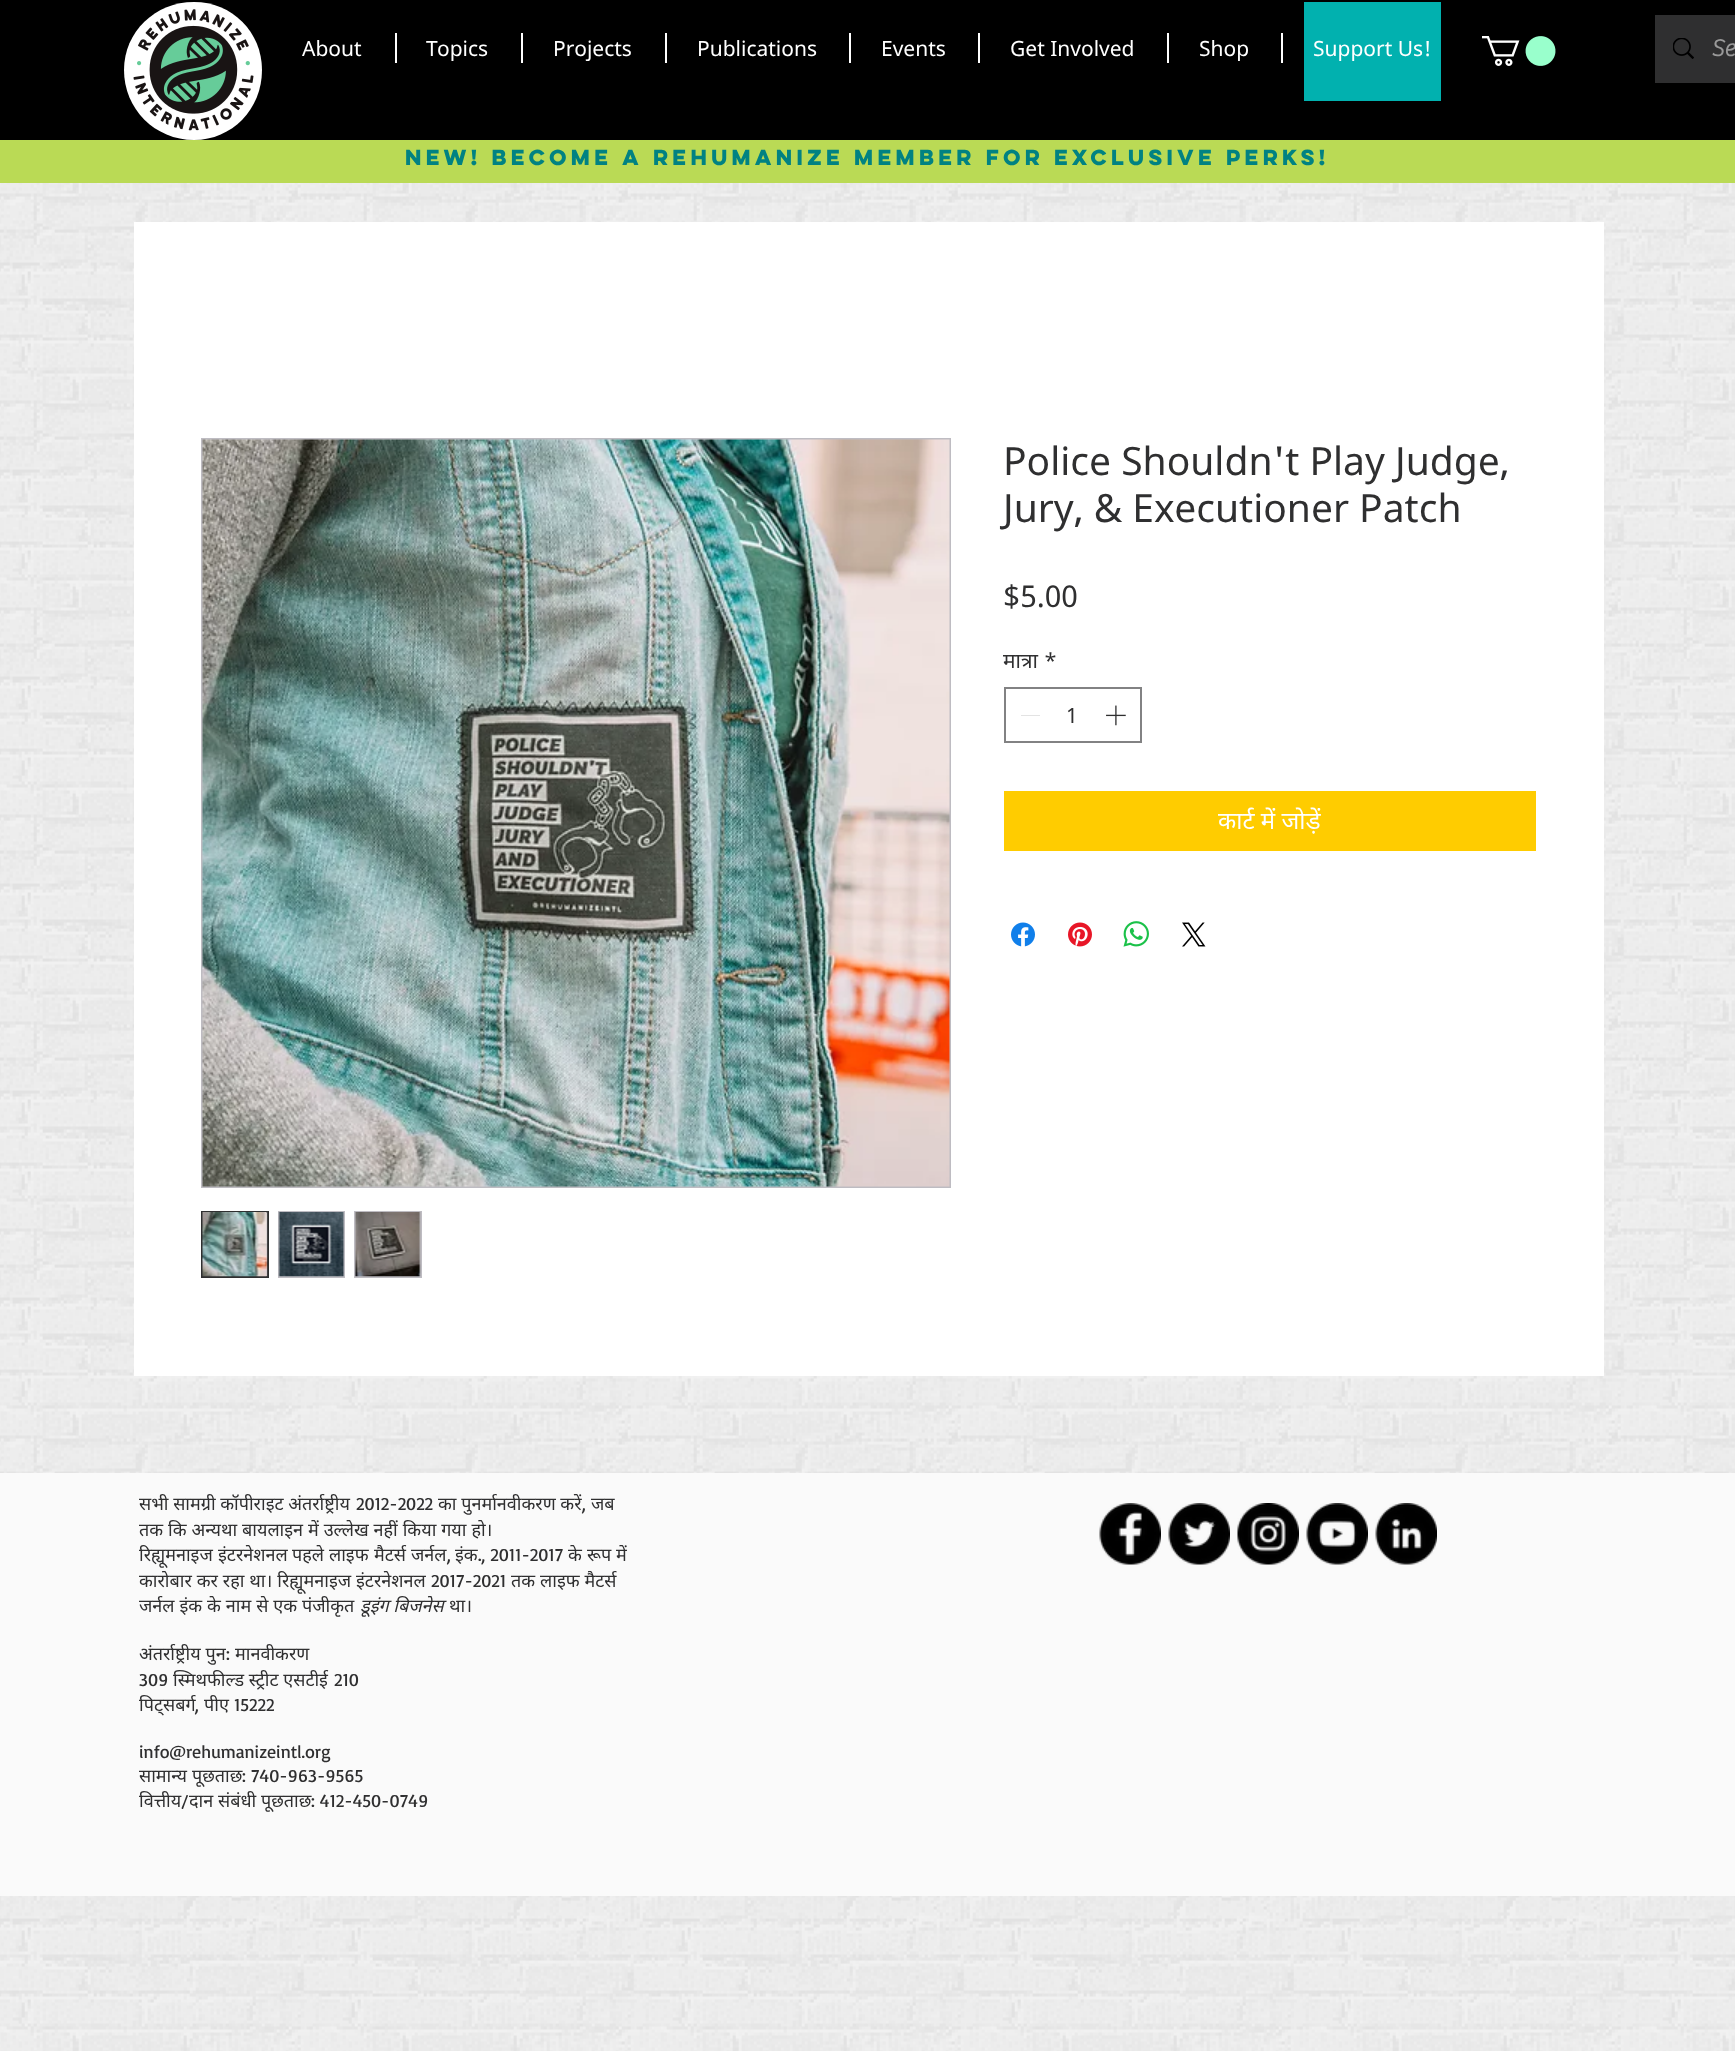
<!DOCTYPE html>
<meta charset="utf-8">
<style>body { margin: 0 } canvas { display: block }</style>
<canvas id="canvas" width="1735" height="2051"></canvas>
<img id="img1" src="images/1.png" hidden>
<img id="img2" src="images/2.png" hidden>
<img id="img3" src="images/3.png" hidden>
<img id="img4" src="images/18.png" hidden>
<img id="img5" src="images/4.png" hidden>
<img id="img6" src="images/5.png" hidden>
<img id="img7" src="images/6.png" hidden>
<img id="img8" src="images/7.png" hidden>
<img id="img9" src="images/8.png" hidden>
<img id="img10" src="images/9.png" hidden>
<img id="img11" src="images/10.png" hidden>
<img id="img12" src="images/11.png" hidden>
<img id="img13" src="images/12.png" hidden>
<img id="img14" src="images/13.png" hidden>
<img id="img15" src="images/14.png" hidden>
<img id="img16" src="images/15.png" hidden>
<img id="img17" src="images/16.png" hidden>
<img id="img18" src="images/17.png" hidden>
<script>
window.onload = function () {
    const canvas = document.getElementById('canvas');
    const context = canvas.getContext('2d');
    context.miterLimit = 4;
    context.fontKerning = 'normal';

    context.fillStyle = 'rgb(255, 255, 255)';
    context.fillRect(0, 0, 1735, 2051);
    context.fillStyle = 'rgb(0, 0, 0)';
    context.fillRect(0, 0, 1735, 140);
    context.fillStyle = 'rgb(255, 255, 255)';
    context.beginPath();
    context.moveTo(262, 70);
    context.bezierCurveTo(262, 109, 232, 140, 194, 140);
    context.bezierCurveTo(155, 140, 124, 109, 124, 70);
    context.bezierCurveTo(124, 32, 155, 2, 194, 2);
    context.bezierCurveTo(232, 2, 262, 32, 262, 70);
    context.closePath();
    context.fill();
    context.drawImage(document.getElementById('img1'), 133, 9, 121, 122);
    context.fillStyle = 'rgb(1, 177, 175)';
    context.fillRect(1304, 2, 137, 99);
    context.drawImage(document.getElementById('img2'), 1482, 36, 74, 30);
    context.fillStyle = 'rgb(47, 47, 48)';
    context.fillRect(1655, 15, 80, 68);
    context.drawImage(document.getElementById('img3'), 1673, 38, 21, 21);
    context.fillStyle = 'rgb(255, 255, 255)';
    context.fillRect(395, 33, 2, 30);
    context.fillRect(521, 33, 2, 30);
    context.fillRect(665, 33, 2, 30);
    context.fillRect(849, 33, 2, 30);
    context.fillRect(978, 33, 2, 30);
    context.fillRect(1167, 33, 2, 30);
    context.fillRect(1281, 33, 2, 30);
    context.fillStyle = 'rgb(186, 218, 85)';
    context.fillRect(0, 140, 1735, 43);
    context.drawImage(document.getElementById('img4'), 0, 183, 1735, 1868);
    context.fillStyle = 'rgb(255, 255, 255)';
    context.fillRect(134, 222, 1470, 1154);
    context.strokeStyle = 'rgb(190, 188, 194)';
    context.lineWidth = 2;
    context.strokeRect(202, 439, 748, 748);
    context.drawImage(document.getElementById('img5'), 202, 439, 748, 748);
    context.fillStyle = 'rgb(190, 188, 194)';
    context.fillRect(266, 1213, 1, 63);
    context.strokeStyle = 'rgb(47, 47, 48)';
    context.strokeRect(202, 1212, 66, 65);
    context.drawImage(document.getElementById('img6'), 202, 1212, 66, 65);
    context.fillRect(278, 1211, 67, 67);
    context.drawImage(document.getElementById('img7'), 278, 1212, 66, 65);
    context.fillRect(354, 1211, 68, 67);
    context.drawImage(document.getElementById('img8'), 355, 1212, 66, 65);
    context.strokeStyle = 'rgb(130, 130, 131)';
    context.strokeRect(1005, 688, 136, 54);
    context.fillStyle = 'rgb(227, 227, 227)';
    context.fillRect(1021, 715, 19, 1);
    context.drawImage(document.getElementById('img9'), 1106, 705, 20, 21);
    context.fillStyle = 'rgb(255, 204, 0)';
    context.fillRect(1004, 791, 532, 60);
    context.drawImage(document.getElementById('img10'), 1011, 922, 24, 25);
    context.drawImage(document.getElementById('img11'), 1068, 922, 24, 25);
    context.drawImage(document.getElementById('img12'), 1123, 921, 26, 26);
    context.drawImage(document.getElementById('img13'), 1182, 922, 24, 25);
    context.fillStyle = 'rgb(250, 250, 250)';
    context.fillRect(0, 1473, 1735, 423);
    context.drawImage(document.getElementById('img14'), 1099, 1503, 62, 62);
    context.drawImage(document.getElementById('img15'), 1168, 1503, 62, 62);
    context.drawImage(document.getElementById('img16'), 1237, 1503, 62, 62);
    context.drawImage(document.getElementById('img17'), 1306, 1503, 62, 62);
    context.drawImage(document.getElementById('img18'), 1375, 1503, 62, 62);
    context.font = 'bold 24px "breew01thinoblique"';
    context.fillStyle = 'rgb(153, 153, 153)';
    context.fillText('Se', 1711, 56);
    context.font = '21px Noto Sans';
    context.fillStyle = 'rgb(255, 255, 255)';
    context.fillText('About', 302, 56);
    context.fillText('Topics', 426, 56);
    context.fillText('Projects', 553, 56);
    context.fillText('Publications', 697, 56);
    context.fillText('Events', 881, 56);
    context.fillText('Get Involved', 1010, 56);
    context.fillText('Shop', 1199, 56);
    context.fillText('Support Us!', 1313, 56);
    context.font = 'bold 19.5px "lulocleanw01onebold"';
    context.fillStyle = 'rgb(1, 130, 130)';
    context.fillText('New! become a rehumanize member for exclusive perks!', 405, 165);
    context.font = '39px Noto Sans';
    context.fillStyle = 'rgb(47, 47, 48)';
    context.fillText('Police Shouldn\'t Play Judge,', 1003, 475);
    context.fillText('Jury, & Executioner Patch', 1003, 522);
    context.font = '30px Noto Sans';
    context.fillText('$5.00', 1003, 607);
    context.font = '21px Noto Sans';
    context.fillText('मात्रा', 1003, 668);
    context.fillText('*', 1044, 668);
    context.fillText('1', 1066, 723);
    context.font = '24px Noto Sans';
    context.fillStyle = 'rgb(255, 255, 255)';
    context.fillText('कार्ट में जोड़ें', 1218, 829);
    context.font = '18px "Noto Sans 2"';
    context.fillStyle = 'rgb(47, 47, 48)';
    context.fillText('सभी सामग्री कॉपीराइट अंतर्राष्ट्रीय', 139, 1510);
    context.font = '18px Basic';
    context.fillText('2012-2022', 356, 1510);
    context.font = '18px "Noto Sans 2"';
    context.fillText('का पुनर्मानवीकरण करें', 438, 1510);
    context.fillText('जब', 591, 1510);
    context.font = '18px Basic';
    context.fillText(',', 582, 1510);
    context.wordSpacing = '0.25px';
    context.font = '18px "Noto Sans 2"';
    context.fillText('तक कि अन्यथा बायलाइन में उल्लेख नहीं किया गया हो।', 139, 1536);
    context.wordSpacing = '0px';
    context.fillText('रिह्यूमनाइज', 139, 1561);
    context.fillText('इंटरनेशनल', 218, 1561);
    context.fillText('पहले', 292, 1561);
    context.fillText('लाइफ', 329, 1561);
    context.fillText('मैटर्स', 374, 1561);
    context.fillText('जर्नल', 411, 1561);
    context.font = '18px Basic';
    context.fillText(',', 447, 1561);
    context.font = '18px "Noto Sans 2"';
    context.fillText('इंक', 455, 1561);
    context.font = '18px Basic';
    context.fillText('., 2011-2017', 478, 1561);
    context.font = '18px "Noto Sans 2"';
    context.fillText('के', 568, 1561);
    context.fillText('रूप', 587, 1561);
    context.fillText('में', 616, 1561);
    context.wordSpacing = '0.25px';
    context.fillText('कारोबार कर रहा था। रिह्यूमनाइज इंटरनेशनल', 139, 1587);
    context.wordSpacing = '0px';
    context.font = '18px Basic';
    context.fillText('2017-2021', 431, 1587);
    context.wordSpacing = '0.25px';
    context.font = '18px "Noto Sans 2"';
    context.fillText('तक लाइफ मैटर्स', 511, 1587);
    context.fillText('जर्नल इंक के नाम से एक पंजीकृत', 139, 1612);
    context.wordSpacing = '0px';
    context.font = 'italic 18px Noto Sans';
    context.fillText('डूइंग बिजनेस', 360, 1612);
    context.font = '18px "Noto Sans 2"';
    context.fillText('था।', 449, 1612);
    context.wordSpacing = '0.25px';
    context.fillText('अंतर्राष्ट्रीय पुन', 139, 1660);
    context.wordSpacing = '0px';
    context.font = '18px Basic';
    context.fillText(':', 226, 1660);
    context.font = '18px "Noto Sans 2"';
    context.fillText('मानवीकरण', 235, 1660);
    context.font = '18px Basic';
    context.fillText('309', 139, 1686);
    context.font = '18px "Noto Sans 2"';
    context.fillText('स्मिथफील्ड स्ट्रीट एसटीई', 173, 1686);
    context.font = '18px Basic';
    context.fillText('210', 334, 1686);
    context.font = '18px "Noto Sans 2"';
    context.fillText('पिट्सबर्ग', 139, 1711);
    context.font = '18px Basic';
    context.fillText(',', 195, 1711);
    context.font = '18px "Noto Sans 2"';
    context.fillText('पीए', 204, 1711);
    context.font = '18px Basic';
    context.fillText('15222', 234, 1711);
    context.fillText('info@rehumanizeintl.org', 139, 1758);
    context.font = '18px "Noto Sans 2"';
    context.fillText('सामान्य', 139, 1782);
    context.fillText('पूछताछ', 192, 1782);
    context.font = '18px Basic';
    context.fillText(': 740-963-9565', 242, 1782);
    context.font = '18px "Noto Sans 2"';
    context.fillText('वित्तीय', 139, 1807);
    context.font = '18px Basic';
    context.fillText('/', 181, 1807);
    context.font = '18px "Noto Sans 2"';
    context.fillText('दान', 189, 1807);
    context.fillText('संबंधी', 218, 1807);
    context.fillText('पूछताछ', 261, 1807);
    context.font = '18px Basic';
    context.fillText(': 412-450-0749', 311, 1807);
};
</script>
